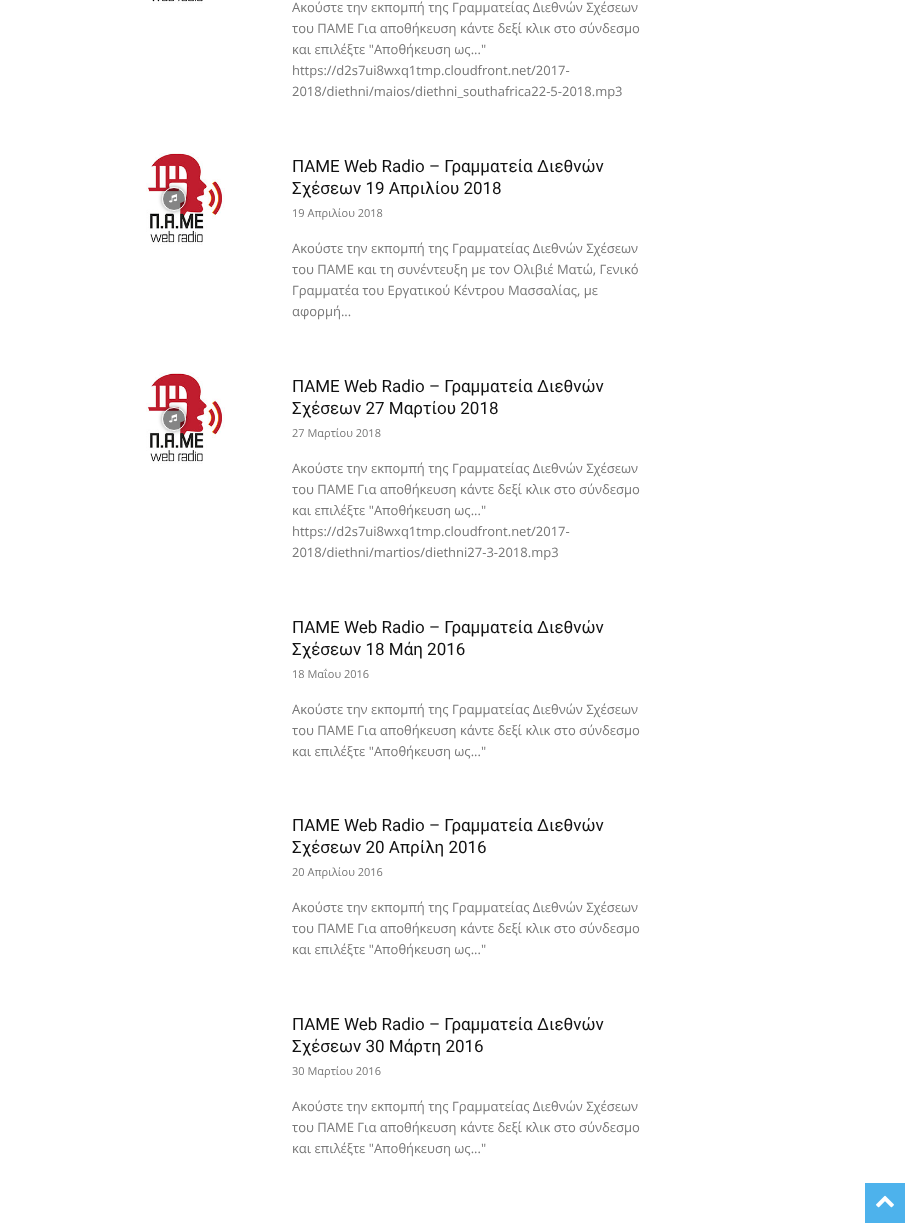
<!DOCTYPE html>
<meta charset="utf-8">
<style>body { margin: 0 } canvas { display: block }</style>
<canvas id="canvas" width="910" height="1227"></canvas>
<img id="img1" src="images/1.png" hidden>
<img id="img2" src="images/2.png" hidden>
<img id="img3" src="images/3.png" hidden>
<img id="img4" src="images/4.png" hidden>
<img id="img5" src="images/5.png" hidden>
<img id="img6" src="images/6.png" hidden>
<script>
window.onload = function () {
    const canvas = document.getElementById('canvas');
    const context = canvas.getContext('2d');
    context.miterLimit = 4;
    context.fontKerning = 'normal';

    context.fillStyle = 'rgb(255, 255, 255)';
    context.fillRect(0, 0, 910, 1227);
    context.drawImage(document.getElementById('img1'), 152, 0, 51, 4);
    context.drawImage(document.getElementById('img2'), 146, 153, 79, 92);
    context.save();
    context.beginPath();
    context.moveTo(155, 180);
    context.lineTo(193, 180);
    context.lineTo(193, 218);
    context.lineTo(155, 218);
    context.closePath();
    context.moveTo(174, 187);
    context.bezierCurveTo(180.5, 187, 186, 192.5, 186, 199);
    context.bezierCurveTo(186, 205.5, 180.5, 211, 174, 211);
    context.bezierCurveTo(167.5, 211, 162, 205.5, 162, 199);
    context.bezierCurveTo(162, 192.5, 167.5, 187, 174, 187);
    context.closePath();
    context.clip('evenodd');
    context.fillStyle = 'rgba(0, 0, 0, 0.4)';
    context.filter = 'blur(2px)';
    context.beginPath();
    context.roundRect(162, 187, 24, 24, 12);
    context.fill();
    context.filter = 'none';
    context.restore();
    context.fillStyle = 'rgba(0, 0, 0, 0.48)';
    context.beginPath();
    context.arc(174, 199, 11.5, 0, 2 * Math.PI);
    context.fill();
    context.strokeStyle = 'rgb(255, 255, 255)';
    context.stroke();
    context.drawImage(document.getElementById('img3'), 169, 194, 8, 9);
    context.drawImage(document.getElementById('img4'), 146, 372, 79, 92);
    context.save();
    context.beginPath();
    context.moveTo(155, 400);
    context.lineTo(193, 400);
    context.lineTo(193, 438);
    context.lineTo(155, 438);
    context.closePath();
    context.moveTo(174, 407);
    context.bezierCurveTo(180.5, 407, 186, 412.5, 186, 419);
    context.bezierCurveTo(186, 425.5, 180.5, 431, 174, 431);
    context.bezierCurveTo(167.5, 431, 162, 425.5, 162, 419);
    context.bezierCurveTo(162, 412.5, 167.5, 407, 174, 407);
    context.closePath();
    context.clip('evenodd');
    context.fillStyle = 'rgba(0, 0, 0, 0.4)';
    context.filter = 'blur(2px)';
    context.beginPath();
    context.roundRect(162, 407, 24, 24, 12);
    context.fill();
    context.filter = 'none';
    context.restore();
    context.beginPath();
    context.arc(174, 419, 11.5, 0, 2 * Math.PI);
    context.fill();
    context.stroke();
    context.drawImage(document.getElementById('img5'), 169, 414, 8, 9);
    context.fillStyle = 'rgb(77, 178, 236)';
    context.fillRect(865, 1183, 40, 40);
    context.drawImage(document.getElementById('img6'), 876, 1195, 18, 13);
    context.font = '13px Open Sans';
    context.fillStyle = 'rgb(118, 118, 118)';
    context.fillText('Ακούστε την εκπομπή της Γραμματείας Διεθνών Σχέσεων', 292, 12);
    context.fillText('του ΠΑΜΕ Για αποθήκευση κάντε δεξί κλικ στο σύνδεσμο', 292, 33);
    context.fillText('και επιλέξτε "Αποθήκευση ως..."', 292, 54);
    context.fillText('https://d2s7ui8wxq1tmp.cloudfront.net/2017-', 292, 75);
    context.fillText('2018/diethni/maios/diethni_southafrica22-5-2018.mp3', 292, 96);
    context.font = '17px Roboto';
    context.fillStyle = 'rgb(17, 17, 17)';
    context.fillText('ΠΑΜΕ Web Radio – Γραμματεία Διεθνών', 292, 172);
    context.fillText('Σχέσεων 19 Απριλίου 2018', 292, 194);
    context.font = '11px Open Sans';
    context.fillStyle = 'rgb(118, 118, 118)';
    context.fillText('19 Απριλίου 2018', 292, 217);
    context.font = '13px Open Sans';
    context.fillText('Ακούστε την εκπομπή της Γραμματείας Διεθνών Σχέσεων', 292, 253);
    context.fillText('του ΠΑΜΕ και τη συνέντευξη με τον Ολιβιέ Ματώ, Γενικό', 292, 274);
    context.fillText('Γραμματέα του Εργατικού Κέντρου Μασσαλίας, με', 292, 295);
    context.fillText('αφορμή...', 292, 316);
    context.font = '17px Roboto';
    context.fillStyle = 'rgb(17, 17, 17)';
    context.fillText('ΠΑΜΕ Web Radio – Γραμματεία Διεθνών', 292, 392);
    context.fillText('Σχέσεων 27 Μαρτίου 2018', 292, 414);
    context.font = '11px Open Sans';
    context.fillStyle = 'rgb(118, 118, 118)';
    context.fillText('27 Μαρτίου 2018', 292, 437);
    context.font = '13px Open Sans';
    context.fillText('Ακούστε την εκπομπή της Γραμματείας Διεθνών Σχέσεων', 292, 473);
    context.fillText('του ΠΑΜΕ Για αποθήκευση κάντε δεξί κλικ στο σύνδεσμο', 292, 494);
    context.fillText('και επιλέξτε "Αποθήκευση ως..."', 292, 515);
    context.fillText('https://d2s7ui8wxq1tmp.cloudfront.net/2017-', 292, 536);
    context.fillText('2018/diethni/martios/diethni27-3-2018.mp3', 292, 557);
    context.font = '17px Roboto';
    context.fillStyle = 'rgb(17, 17, 17)';
    context.fillText('ΠΑΜΕ Web Radio – Γραμματεία Διεθνών', 292, 633);
    context.fillText('Σχέσεων 18 Μάη 2016', 292, 655);
    context.font = '11px Open Sans';
    context.fillStyle = 'rgb(118, 118, 118)';
    context.fillText('18 Μαΐου 2016', 292, 678);
    context.font = '13px Open Sans';
    context.fillText('Ακούστε την εκπομπή της Γραμματείας Διεθνών Σχέσεων', 292, 714);
    context.fillText('του ΠΑΜΕ Για αποθήκευση κάντε δεξί κλικ στο σύνδεσμο', 292, 735);
    context.fillText('και επιλέξτε "Αποθήκευση ως..."', 292, 756);
    context.font = '17px Roboto';
    context.fillStyle = 'rgb(17, 17, 17)';
    context.fillText('ΠΑΜΕ Web Radio – Γραμματεία Διεθνών', 292, 831);
    context.fillText('Σχέσεων 20 Απρίλη 2016', 292, 853);
    context.font = '11px Open Sans';
    context.fillStyle = 'rgb(118, 118, 118)';
    context.fillText('20 Απριλίου 2016', 292, 876);
    context.font = '13px Open Sans';
    context.fillText('Ακούστε την εκπομπή της Γραμματείας Διεθνών Σχέσεων', 292, 912);
    context.fillText('του ΠΑΜΕ Για αποθήκευση κάντε δεξί κλικ στο σύνδεσμο', 292, 933);
    context.fillText('και επιλέξτε "Αποθήκευση ως..."', 292, 954);
    context.font = '17px Roboto';
    context.fillStyle = 'rgb(17, 17, 17)';
    context.fillText('ΠΑΜΕ Web Radio – Γραμματεία Διεθνών', 292, 1030);
    context.fillText('Σχέσεων 30 Μάρτη 2016', 292, 1052);
    context.font = '11px Open Sans';
    context.fillStyle = 'rgb(118, 118, 118)';
    context.fillText('30 Μαρτίου 2016', 292, 1075);
    context.font = '13px Open Sans';
    context.fillText('Ακούστε την εκπομπή της Γραμματείας Διεθνών Σχέσεων', 292, 1111);
    context.fillText('του ΠΑΜΕ Για αποθήκευση κάντε δεξί κλικ στο σύνδεσμο', 292, 1132);
    context.fillText('και επιλέξτε "Αποθήκευση ως..."', 292, 1153);
};
</script>
